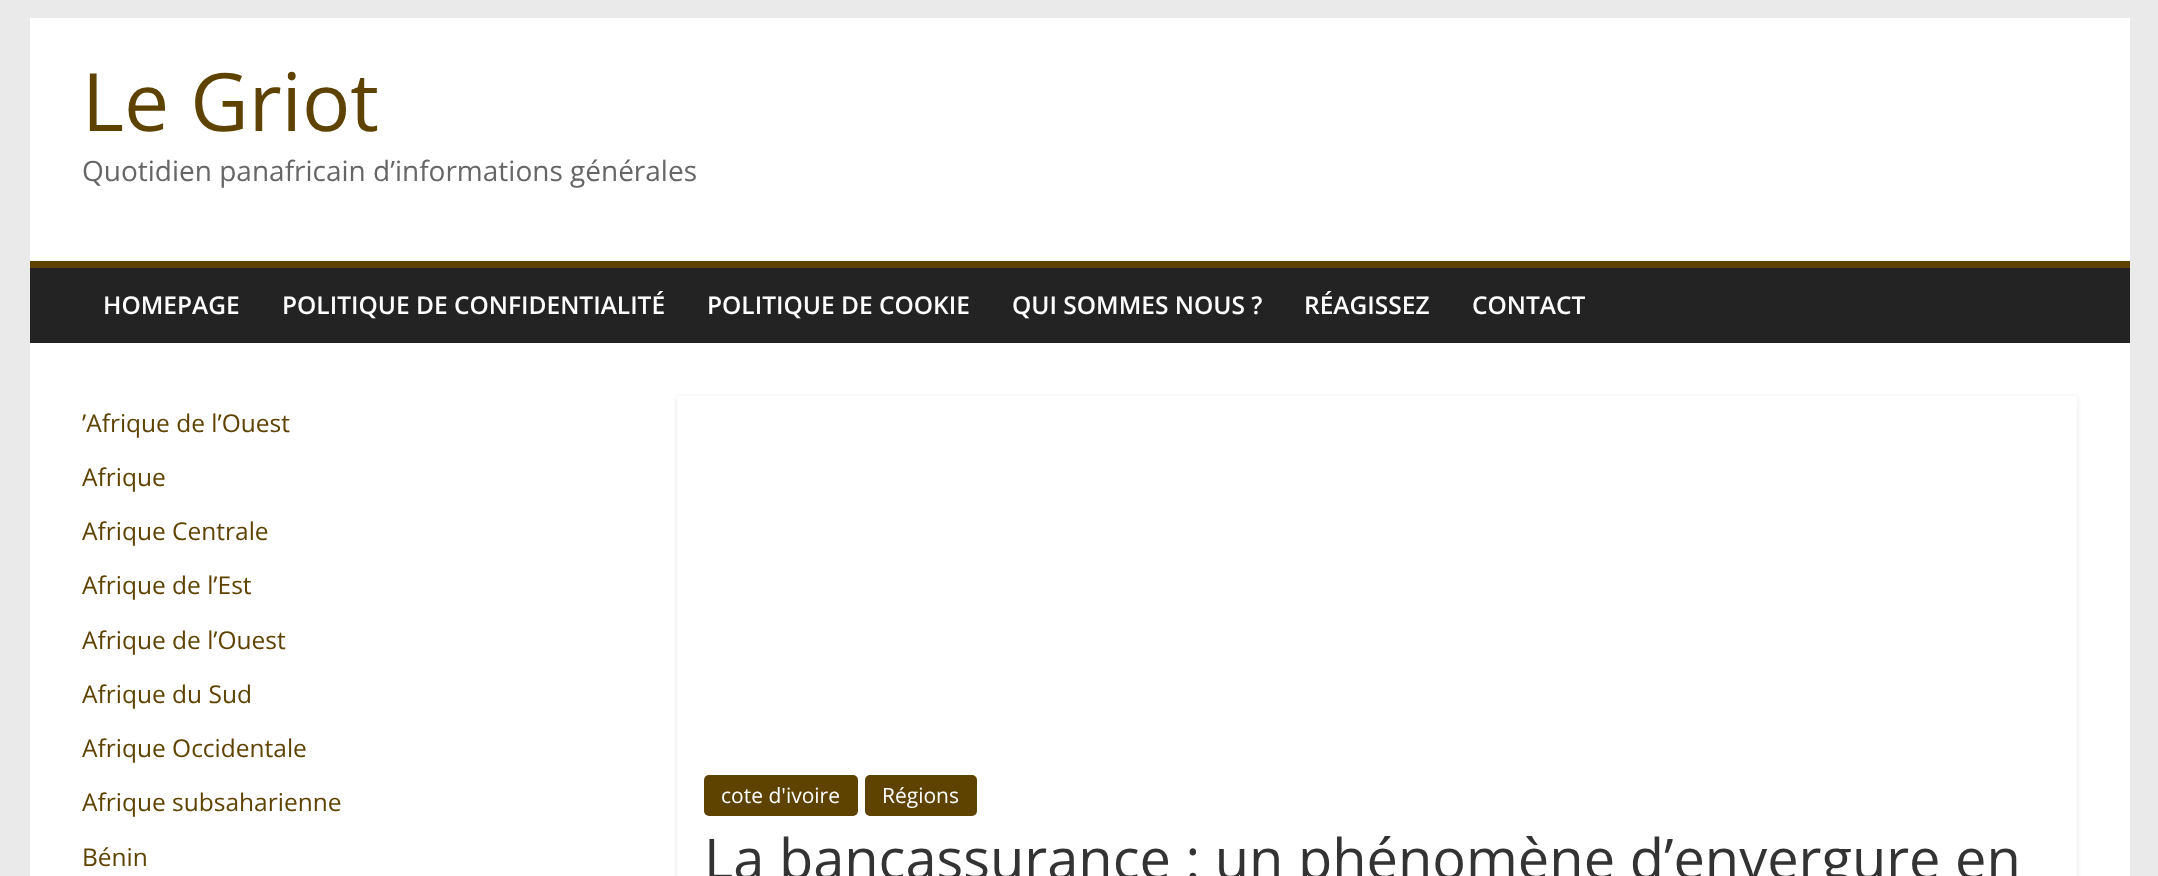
<!DOCTYPE html>
<meta charset="utf-8">
<style>body { margin: 0 } canvas { display: block }</style>
<canvas id="canvas" width="2158" height="876"></canvas>
<script>
window.onload = function () {
    const canvas = document.getElementById('canvas');
    const context = canvas.getContext('2d');
    context.miterLimit = 4;
    context.fontKerning = 'normal';

    context.fillStyle = 'rgb(234, 234, 234)';
    context.fillRect(0, 0, 2158, 876);
    context.fillStyle = 'rgb(255, 255, 255)';
    context.fillRect(30, 18, 2100, 243);
    context.fillStyle = 'rgb(35, 35, 35)';
    context.fillRect(30, 268, 2100, 75);
    context.fillStyle = 'rgb(94, 66, 0)';
    context.fillRect(30, 261, 2100, 7);
    context.fillStyle = 'rgb(255, 255, 255)';
    context.fillRect(30, 343, 2100, 533);
    context.save();
    context.beginPath();
    context.moveTo(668, 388);
    context.lineTo(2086, 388);
    context.lineTo(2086, 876);
    context.lineTo(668, 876);
    context.closePath();
    context.moveTo(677, 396);
    context.lineTo(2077, 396);
    context.lineTo(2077, 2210);
    context.lineTo(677, 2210);
    context.closePath();
    context.clip('evenodd');
    context.fillStyle = 'rgba(0, 0, 0, 0.1)';
    context.filter = 'blur(2.5px)';
    context.beginPath();
    context.rect(677, 397, 1400, 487);
    context.fill();
    context.filter = 'none';
    context.restore();
    context.fillStyle = 'rgb(94, 66, 0)';
    context.beginPath();
    context.roundRect(704, 775, 154, 41, 5);
    context.fill();
    context.beginPath();
    context.roundRect(865, 775, 112, 41, 5);
    context.fill();
    context.font = '80.5px Open Sans';
    context.fillText('Le Griot', 82, 131);
    context.font = '28px Open Sans';
    context.fillStyle = 'rgb(102, 102, 102)';
    context.fillText('Quotidien panafricain d’informations générales', 82, 181);
    context.font = '600 24.5px Open Sans';
    context.fillStyle = 'rgb(255, 255, 255)';
    context.fillText('HOMEPAGE', 103, 314);
    context.fillText('POLITIQUE DE CONFIDENTIALITÉ', 282, 314);
    context.fillText('POLITIQUE DE COOKIE', 707, 314);
    context.fillText('QUI SOMMES NOUS ?', 1012, 314);
    context.fillText('RÉAGISSEZ', 1304, 314);
    context.fillText('CONTACT', 1472, 314);
    context.font = '24.5px Open Sans';
    context.fillStyle = 'rgb(94, 66, 0)';
    context.fillText('’Afrique de l’Ouest', 82, 432);
    context.fillText('Afrique', 82, 486);
    context.fillText('Afrique Centrale', 82, 540);
    context.fillText('Afrique de l’Est', 82, 594);
    context.fillText('Afrique de l’Ouest', 82, 649);
    context.fillText('Afrique du Sud', 82, 703);
    context.fillText('Afrique Occidentale', 82, 757);
    context.fillText('Afrique subsaharienne', 82, 811);
    context.fillText('Bénin', 82, 866);
    context.font = '21px Open Sans';
    context.fillStyle = 'rgb(255, 255, 255)';
    context.fillText('cote d\'ivoire', 721, 803);
    context.fillText('Régions', 882, 803);
    context.font = '56px Open Sans';
    context.fillStyle = 'rgb(51, 51, 51)';
    context.fillText('La bancassurance : un phénomène d’envergure en', 704, 879);
};
</script>
